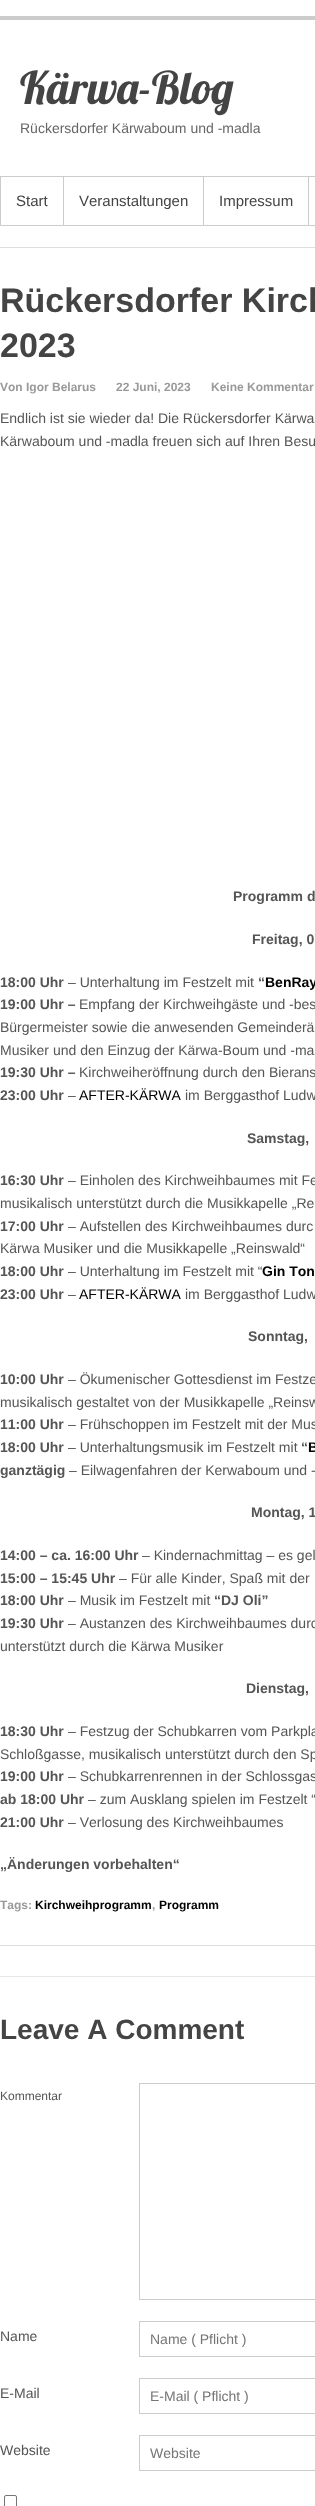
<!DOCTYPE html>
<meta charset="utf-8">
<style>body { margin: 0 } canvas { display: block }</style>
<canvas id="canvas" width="315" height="2506"></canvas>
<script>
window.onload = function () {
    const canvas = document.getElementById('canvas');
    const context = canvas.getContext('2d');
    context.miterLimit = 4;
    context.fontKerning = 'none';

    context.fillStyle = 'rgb(255, 255, 255)';
    context.fillRect(0, 0, 315, 2506);
    context.fillStyle = 'rgb(223, 223, 223)';
    context.fillRect(0, 247, 315, 1);
    context.fillStyle = 'rgb(204, 204, 204)';
    context.fillRect(0, 16, 315, 4);
    context.strokeStyle = 'rgb(204, 204, 204)';
    context.strokeRect(0.5, 176.5, 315, 49);
    context.fillRect(63, 177, 1, 49);
    context.fillRect(203, 177, 1, 49);
    context.fillRect(308, 177, 1, 49);
    context.fillStyle = 'rgb(221, 221, 221)';
    context.fillRect(0, 1945, 315, 1);
    context.fillStyle = 'rgb(231, 231, 231)';
    context.fillRect(0, 1976, 315, 1);
    context.strokeRect(139.5, 2083.5, 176, 216);
    context.strokeRect(139.5, 2321.5, 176, 35);
    context.strokeRect(139.5, 2378.5, 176, 35);
    context.strokeRect(139.5, 2435.5, 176, 35);
    context.beginPath();
    context.roundRect(4.5, 2495.5, 12, 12, 1.5);
    context.strokeStyle = 'rgb(118, 118, 118)';
    context.stroke();
    context.font = '45px Lobster';
    context.fillStyle = 'rgb(68, 68, 68)';
    context.fillText('Kärwa-Blog', 20, 104);
    context.font = '14px Liberation Sans';
    context.fillStyle = 'rgb(102, 102, 102)';
    context.fillText('Rückersdorfer Kärwaboum und -madla', 20, 133);
    context.font = '15px Liberation Sans';
    context.fillStyle = 'rgb(68, 68, 68)';
    context.fillText('Start', 16, 206);
    context.fillText('Veranstaltungen', 79, 206);
    context.fillText('Impressum', 219, 206);
    context.font = 'bold 34px Liberation Sans';
    context.fillText('Rückersdorfer Kirch', 0, 312);
    context.fillText('2023', 0, 357);
    context.font = 'bold 12px Liberation Sans';
    context.fillStyle = 'rgb(153, 153, 153)';
    context.fillText('Von Igor Belarus', 0, 391);
    context.fillText('22 Juni, 2023', 116, 391);
    context.fillText('Keine Kommentar', 211, 391);
    context.font = '14px Liberation Sans';
    context.fillStyle = 'rgb(85, 85, 85)';
    context.fillText('Endlich ist sie wieder da! Die Rückersdorfer Kärwa', 0, 423);
    context.fillText('Kärwaboum und -madla freuen sich auf Ihren Besu', 0, 446);
    context.font = 'bold 14px Liberation Sans';
    context.fillText('Programm d', 233, 901);
    context.fillText('Freitag, 0', 252, 944);
    context.fillText('18:00 Uhr', 0, 987);
    context.font = '14px Liberation Sans';
    context.fillText('– Unterhaltung im Festzelt mit', 68, 987);
    context.font = 'bold 14px Liberation Sans';
    context.fillText('“', 258, 987);
    context.fillStyle = 'rgb(0, 0, 0)';
    context.fillText('BenRay', 265, 987);
    context.fillStyle = 'rgb(85, 85, 85)';
    context.fillText('19:00 Uhr –', 0, 1009);
    context.font = '14px Liberation Sans';
    context.fillText('Empfang der Kirchweihgäste und -bes', 79, 1009);
    context.fillText('Bürgermeister sowie die anwesenden Gemeinderä', 0, 1032);
    context.fillText('Musiker und den Einzug der Kärwa-Boum und -ma', 0, 1055);
    context.font = 'bold 14px Liberation Sans';
    context.fillText('19:30 Uhr –', 0, 1077);
    context.font = '14px Liberation Sans';
    context.fillText('Kirchweiheröffnung durch den Bierans', 79, 1077);
    context.font = 'bold 14px Liberation Sans';
    context.fillText('23:00 Uhr', 0, 1100);
    context.font = '14px Liberation Sans';
    context.fillText('–', 68, 1100);
    context.fillStyle = 'rgb(0, 0, 0)';
    context.fillText('AFTER-KÄRWA', 79, 1100);
    context.fillStyle = 'rgb(85, 85, 85)';
    context.fillText('im Berggasthof Ludw', 185, 1100);
    context.font = 'bold 14px Liberation Sans';
    context.fillText('Samstag,', 247, 1143);
    context.fillText('16:30 Uhr', 0, 1185);
    context.font = '14px Liberation Sans';
    context.fillText('– Einholen des Kirchweihbaumes mit Fe', 68, 1185);
    context.fillText('musikalisch unterstützt durch die Musikkapelle „Re', 0, 1208);
    context.font = 'bold 14px Liberation Sans';
    context.fillText('17:00 Uhr', 0, 1231);
    context.font = '14px Liberation Sans';
    context.fillText('– Aufstellen des Kirchweihbaumes durc', 68, 1231);
    context.fillText('Kärwa Musiker und die Musikkapelle „Reinswald“', 0, 1253);
    context.font = 'bold 14px Liberation Sans';
    context.fillText('18:00 Uhr', 0, 1276);
    context.font = '14px Liberation Sans';
    context.fillText('– Unterhaltung im Festzelt mit “', 68, 1276);
    context.font = 'bold 14px Liberation Sans';
    context.fillStyle = 'rgb(0, 0, 0)';
    context.fillText('Gin Ton', 262, 1276);
    context.fillStyle = 'rgb(85, 85, 85)';
    context.fillText('23:00 Uhr', 0, 1299);
    context.font = '14px Liberation Sans';
    context.fillText('–', 68, 1299);
    context.fillStyle = 'rgb(0, 0, 0)';
    context.fillText('AFTER-KÄRWA', 79, 1299);
    context.fillStyle = 'rgb(85, 85, 85)';
    context.fillText('im Berggasthof Ludw', 185, 1299);
    context.font = 'bold 14px Liberation Sans';
    context.fillText('Sonntag,', 248, 1341);
    context.fillText('10:00 Uhr', 0, 1384);
    context.font = '14px Liberation Sans';
    context.fillText('– Ökumenischer Gottesdienst im Festze', 68, 1384);
    context.fillText('musikalisch gestaltet von der Musikkapelle „Reinsw', 0, 1407);
    context.font = 'bold 14px Liberation Sans';
    context.fillText('11:00 Uhr', 0, 1429);
    context.font = '14px Liberation Sans';
    context.fillText('– Frühschoppen im Festzelt mit der Mus', 68, 1429);
    context.font = 'bold 14px Liberation Sans';
    context.fillText('18:00 Uhr', 0, 1452);
    context.font = '14px Liberation Sans';
    context.fillText('– Unterhaltungsmusik im Festzelt mit', 68, 1452);
    context.font = 'bold 14px Liberation Sans';
    context.fillText('“', 301, 1452);
    context.fillStyle = 'rgb(0, 0, 0)';
    context.fillText('B', 308, 1452);
    context.fillStyle = 'rgb(85, 85, 85)';
    context.fillText('ganztägig', 0, 1475);
    context.font = '14px Liberation Sans';
    context.fillText('– Eilwagenfahren der Kerwaboum und -', 69, 1475);
    context.font = 'bold 14px Liberation Sans';
    context.fillText('Montag, 1', 251, 1517);
    context.fillText('14:00 – ca. 16:00 Uhr', 0, 1560);
    context.font = '14px Liberation Sans';
    context.fillText('– Kindernachmittag – es gel', 142, 1560);
    context.font = 'bold 14px Liberation Sans';
    context.fillText('15:00 – 15:45 Uhr', 0, 1583);
    context.font = '14px Liberation Sans';
    context.fillText('– Für alle Kinder, Spaß mit der', 119, 1583);
    context.font = 'bold 14px Liberation Sans';
    context.fillText('18:00 Uhr', 0, 1605);
    context.font = '14px Liberation Sans';
    context.fillText('– Musik im Festzelt mit', 68, 1605);
    context.font = 'bold 14px Liberation Sans';
    context.fillText('“DJ Oli”', 214, 1605);
    context.fillText('19:30 Uhr', 0, 1628);
    context.font = '14px Liberation Sans';
    context.fillText('– Austanzen des Kirchweihbaumes durc', 68, 1628);
    context.fillText('unterstützt durch die Kärwa Musiker', 0, 1651);
    context.font = 'bold 14px Liberation Sans';
    context.fillText('Dienstag,', 246, 1693);
    context.fillText('18:30 Uhr', 0, 1736);
    context.font = '14px Liberation Sans';
    context.fillText('– Festzug der Schubkarren vom Parkpla', 68, 1736);
    context.fillText('Schloßgasse, musikalisch unterstützt durch den Sp', 0, 1759);
    context.font = 'bold 14px Liberation Sans';
    context.fillText('19:00 Uhr', 0, 1781);
    context.font = '14px Liberation Sans';
    context.fillText('– Schubkarrenrennen in der Schlossgas', 68, 1781);
    context.font = 'bold 14px Liberation Sans';
    context.fillText('ab 18:00 Uhr', 0, 1804);
    context.font = '14px Liberation Sans';
    context.fillText('– zum Ausklang spielen im Festzelt “', 88, 1804);
    context.font = 'bold 14px Liberation Sans';
    context.fillText('21:00 Uhr', 0, 1827);
    context.font = '14px Liberation Sans';
    context.fillText('– Verlosung des Kirchweihbaumes', 68, 1827);
    context.font = 'bold 14px Liberation Sans';
    context.fillText('„Änderungen vorbehalten“', 0, 1869);
    context.font = 'bold 12px Liberation Sans';
    context.fillStyle = 'rgb(153, 153, 153)';
    context.fillText('Tags:', 0, 1909);
    context.fillStyle = 'rgb(0, 0, 0)';
    context.fillText('Kirchweihprogramm', 35, 1909);
    context.fillStyle = 'rgb(153, 153, 153)';
    context.fillText(',', 152, 1909);
    context.fillStyle = 'rgb(0, 0, 0)';
    context.fillText('Programm', 159, 1909);
    context.font = 'bold 28px Liberation Sans';
    context.fillStyle = 'rgb(68, 68, 68)';
    context.fillText('Leave A Comment', 0, 2039);
    context.font = '12px Liberation Sans';
    context.fillStyle = 'rgb(85, 85, 85)';
    context.fillText('Kommentar', 0, 2100);
    context.font = '14px Liberation Sans';
    context.fillText('Name', 0, 2341);
    context.fillStyle = 'rgb(117, 117, 117)';
    context.fillText('Name ( Pflicht )', 150, 2344);
    context.fillStyle = 'rgb(85, 85, 85)';
    context.fillText('E-Mail', 0, 2398);
    context.fillStyle = 'rgb(117, 117, 117)';
    context.fillText('E-Mail ( Pflicht )', 150, 2401);
    context.fillStyle = 'rgb(85, 85, 85)';
    context.fillText('Website', 0, 2455);
    context.fillStyle = 'rgb(117, 117, 117)';
    context.fillText('Website', 150, 2458);
};
</script>
